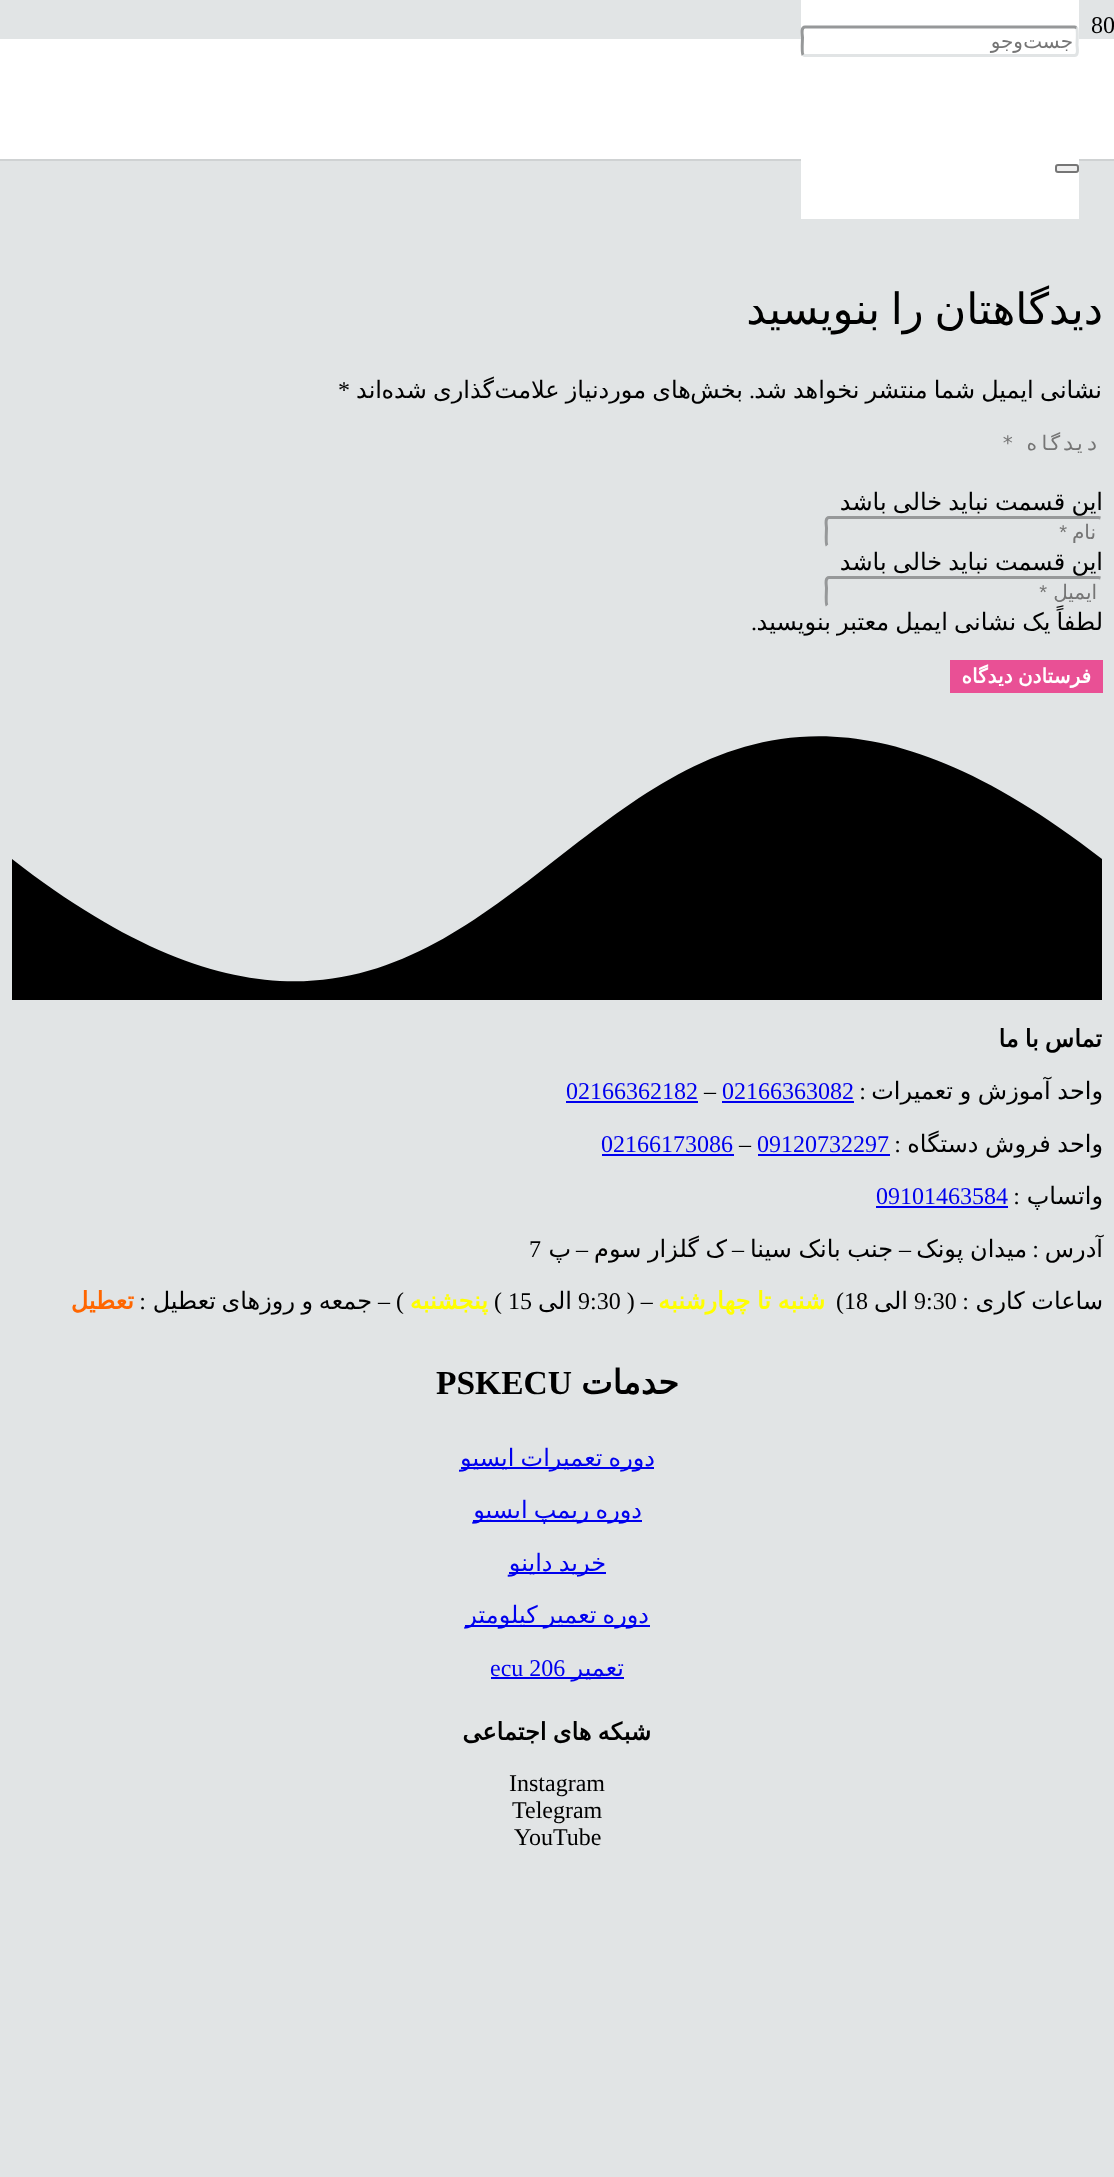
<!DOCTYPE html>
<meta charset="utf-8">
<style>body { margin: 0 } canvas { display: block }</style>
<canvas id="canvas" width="1114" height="2177"></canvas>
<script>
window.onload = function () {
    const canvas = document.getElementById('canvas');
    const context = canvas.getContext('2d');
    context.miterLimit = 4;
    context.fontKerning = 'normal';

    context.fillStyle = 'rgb(225, 228, 229)';
    context.fillRect(0, 0, 1114, 2177);
    context.fillStyle = 'rgb(207, 210, 211)';
    context.beginPath();
    context.moveTo(0, 159);
    context.lineTo(0, 161);
    context.lineTo(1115, 161);
    context.lineTo(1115, 41);
    context.lineTo(1114, 41);
    context.lineTo(1114, 159);
    context.closePath();
    context.fill();
    context.fillStyle = 'rgb(255, 255, 255)';
    context.fillRect(0, 39, 1114, 120);
    context.fillRect(801, 0, 278, 219);
    context.beginPath();
    context.moveTo(1076.5, 27.5);
    context.bezierCurveTo(1078, 29.5, 1077, 42.5, 1077, 45);
    context.bezierCurveTo(1077, 47, 1079, 55.5, 1074.5, 55.5);
    context.lineTo(805, 55.5);
    context.lineTo(803, 55);
    context.strokeStyle = 'rgb(225, 228, 229)';
    context.lineWidth = 3;
    context.stroke();
    context.beginPath();
    context.moveTo(803, 55);
    context.bezierCurveTo(801.5, 53, 802.5, 40, 802.5, 37.5);
    context.bezierCurveTo(802.5, 35.5, 800.5, 27, 805, 27);
    context.lineTo(1074.5, 27);
    context.lineTo(1076.5, 27.5);
    context.strokeStyle = 'rgb(150, 152, 153)';
    context.stroke();
    context.fillStyle = 'rgb(239, 239, 239)';
    context.beginPath();
    context.roundRect(1056, 165, 22, 7, 2);
    context.fill();
    context.strokeStyle = 'rgb(118, 118, 118)';
    context.lineWidth = 2;
    context.stroke();
    context.beginPath();
    context.moveTo(827, 545.5);
    context.bezierCurveTo(825.5, 543.5, 826.5, 530.5, 826.5, 528);
    context.bezierCurveTo(826.5, 526, 824.5, 517.5, 829, 517.5);
    context.lineTo(1098.5, 517.5);
    context.lineTo(1100.5, 518);
    context.strokeStyle = 'rgb(150, 152, 153)';
    context.lineWidth = 3;
    context.stroke();
    context.beginPath();
    context.moveTo(827, 605.5);
    context.bezierCurveTo(825.5, 603.5, 826.5, 590.5, 826.5, 588);
    context.bezierCurveTo(826.5, 586, 824.5, 577.5, 829, 577.5);
    context.lineTo(1098.5, 577.5);
    context.lineTo(1100.5, 578);
    context.stroke();
    context.fillStyle = 'rgb(233, 80, 149)';
    context.fillRect(950, 660, 153, 33);
    context.fillStyle = 'rgb(0, 0, 0)';
    context.beginPath();
    context.moveTo(1102, 859);
    context.bezierCurveTo(557, 434, 557, 1283, 12, 859);
    context.lineTo(12, 1000);
    context.lineTo(1102, 1000);
    context.closePath();
    context.fill();
    context.fillStyle = 'rgb(0, 0, 238)';
    context.fillRect(722, 1101, 132, 2);
    context.fillRect(566, 1101, 132, 2);
    context.fillRect(758, 1154, 132, 2);
    context.fillRect(602, 1154, 132, 2);
    context.fillRect(876, 1206, 132, 2);
    context.fillRect(461, 1467, 193, 2);
    context.fillRect(473, 1520, 169, 2);
    context.fillRect(509, 1572, 97, 2);
    context.fillRect(465, 1625, 185, 2);
    context.fillRect(491, 1677, 133, 2);
    context.font = '24px Liberation Serif';
    context.fillStyle = 'rgb(0, 0, 0)';
    context.fillText('80', 1091, 33);
    context.direction = 'rtl';
    context.font = '20px DejaVu Sans';
    context.fillStyle = 'rgb(117, 117, 117)';
    context.fillText('جست', 1073, 48);
    context.fillText('وجو', 1023, 48);
    context.wordSpacing = '-3px';
    context.font = '43.25px DejaVu Sans';
    context.fillStyle = 'rgb(0, 0, 0)';
    context.fillText('دیدگاهتان را بنویسید', 1103, 324);
    context.wordSpacing = '-1.5px';
    context.font = '24px DejaVu Sans';
    context.fillText('نشانی ایمیل شما منتشر نخواهد شد', 1102, 398);
    context.wordSpacing = '0px';
    context.font = '24px Liberation Serif';
    context.fillText('.', 755, 398);
    context.font = '24px DejaVu Sans';
    context.fillText('بخش', 743, 398);
    context.wordSpacing = '-1.5px';
    context.fillText('های موردنیاز علامت', 691, 398);
    context.fillText('گذاری شده', 494, 398);
    context.wordSpacing = '0px';
    context.fillText('اند', 382, 398);
    context.direction = 'ltr';
    context.font = '24px Liberation Serif';
    context.fillText('*', 338, 398);
    context.direction = 'rtl';
    context.font = '20px DejaVu Sans Mono';
    context.fillStyle = 'rgb(117, 117, 117)';
    context.fillText('دیدگاه *', 1098, 450);
    context.wordSpacing = '-1.5px';
    context.font = '24px DejaVu Sans';
    context.fillStyle = 'rgb(0, 0, 0)';
    context.fillText('این قسمت نباید خالی باشد', 1103, 510);
    context.save();
    context.beginPath();
    context.rect(831, 521, 266, 22);
    context.clip();
    context.wordSpacing = '0px';
    context.font = '20px DejaVu Sans';
    context.fillStyle = 'rgb(117, 117, 117)';
    context.fillText('نام', 1096, 539);
    context.restore();
    context.wordSpacing = '0px';
    context.font = '20px Liberation Sans';
    context.fillStyle = 'rgb(117, 117, 117)';
    context.fillText('*', 1067, 539);
    context.wordSpacing = '-1.5px';
    context.font = '24px DejaVu Sans';
    context.fillStyle = 'rgb(0, 0, 0)';
    context.fillText('این قسمت نباید خالی باشد', 1103, 570);
    context.wordSpacing = '0px';
    context.font = '20px DejaVu Sans';
    context.fillStyle = 'rgb(117, 117, 117)';
    context.fillText('ایمیل', 1097, 599);
    context.font = '20px Liberation Sans';
    context.fillText('*', 1047, 599);
    context.wordSpacing = '-1.5px';
    context.font = '24px DejaVu Sans';
    context.fillStyle = 'rgb(0, 0, 0)';
    context.fillText('لطفاً یک نشانی ایمیل معتبر بنویسید', 1103, 630);
    context.wordSpacing = '0px';
    context.font = '24px Liberation Serif';
    context.fillText('.', 757, 630);
    context.wordSpacing = '-1px';
    context.font = 'bold 20px DejaVu Sans';
    context.fillStyle = 'rgb(255, 255, 255)';
    context.fillText('فرستادن دیدگاه', 1091, 683);
    context.wordSpacing = '-1.5px';
    context.font = 'bold 24px DejaVu Sans';
    context.fillStyle = 'rgb(0, 0, 0)';
    context.fillText('تماس با ما', 1102, 1047);
    context.wordSpacing = '-1px';
    context.font = '24px DejaVu Sans';
    context.fillText('واحد آموزش و تعمیرات', 1103, 1099);
    context.wordSpacing = '0px';
    context.font = '24px Liberation Serif';
    context.fillText(':', 866, 1099);
    context.direction = 'ltr';
    context.fillStyle = 'rgb(0, 0, 238)';
    context.fillText('02166363082', 722, 1099);
    context.fillStyle = 'rgb(0, 0, 0)';
    context.fillText('–', 704, 1099);
    context.fillStyle = 'rgb(0, 0, 238)';
    context.fillText('02166362182', 566, 1099);
    context.wordSpacing = '-1px';
    context.direction = 'rtl';
    context.font = '24px DejaVu Sans';
    context.fillStyle = 'rgb(0, 0, 0)';
    context.fillText('واحد فروش دستگاه', 1103, 1152);
    context.wordSpacing = '0px';
    context.font = '24px Liberation Serif';
    context.fillText(':', 901, 1152);
    context.direction = 'ltr';
    context.fillStyle = 'rgb(0, 0, 238)';
    context.fillText('09120732297', 757, 1152);
    context.fillStyle = 'rgb(0, 0, 0)';
    context.fillText('–', 739, 1152);
    context.fillStyle = 'rgb(0, 0, 238)';
    context.fillText('02166173086', 601, 1152);
    context.direction = 'rtl';
    context.font = '24px DejaVu Sans';
    context.fillStyle = 'rgb(0, 0, 0)';
    context.fillText('واتساپ', 1103, 1204);
    context.font = '24px Liberation Serif';
    context.fillText(':', 1020, 1204);
    context.direction = 'ltr';
    context.fillStyle = 'rgb(0, 0, 238)';
    context.fillText('09101463584', 876, 1204);
    context.direction = 'rtl';
    context.font = '24px DejaVu Sans';
    context.fillStyle = 'rgb(0, 0, 0)';
    context.fillText('آدرس', 1103, 1257);
    context.font = '24px Liberation Serif';
    context.fillText(':', 1039, 1257);
    context.wordSpacing = '-1px';
    context.font = '24px DejaVu Sans';
    context.fillText('میدان پونک', 1027, 1257);
    context.wordSpacing = '0px';
    context.font = '24px Liberation Serif';
    context.fillText('–', 911, 1257);
    context.wordSpacing = '-1px';
    context.font = '24px DejaVu Sans';
    context.fillText('جنب بانک سینا', 893, 1257);
    context.wordSpacing = '0px';
    context.font = '24px Liberation Serif';
    context.fillText('–', 744, 1257);
    context.wordSpacing = '-1px';
    context.font = '24px DejaVu Sans';
    context.fillText('ک گلزار سوم', 727, 1257);
    context.wordSpacing = '0px';
    context.font = '24px Liberation Serif';
    context.fillText('–', 588, 1257);
    context.font = '24px DejaVu Sans';
    context.fillText('پ', 571, 1257);
    context.direction = 'ltr';
    context.font = '24px Liberation Serif';
    context.fillText('7', 529, 1257);
    context.wordSpacing = '-1px';
    context.direction = 'rtl';
    context.font = '24px DejaVu Sans';
    context.fillText('ساعات کاری', 1103, 1309);
    context.wordSpacing = '0px';
    context.font = '24px Liberation Serif';
    context.fillText(':', 969, 1309);
    context.direction = 'ltr';
    context.fillText('9:30', 914, 1309);
    context.direction = 'rtl';
    context.font = '24px DejaVu Sans';
    context.fillText('الی', 908, 1309);
    context.direction = 'ltr';
    context.font = '24px Liberation Serif';
    context.fillText('(18', 836, 1309);
    context.wordSpacing = '-1px';
    context.direction = 'rtl';
    context.font = 'bold 24px DejaVu Sans';
    context.fillStyle = 'rgb(255, 255, 0)';
    context.fillText('شنبه تا چهارشنبه', 825, 1309);
    context.wordSpacing = '0px';
    context.direction = 'ltr';
    context.font = '24px Liberation Serif';
    context.fillStyle = 'rgb(0, 0, 0)';
    context.fillText('9:30 ) –', 578, 1309);
    context.direction = 'rtl';
    context.font = '24px DejaVu Sans';
    context.fillText('الی', 572, 1309);
    context.direction = 'ltr';
    context.font = '24px Liberation Serif';
    context.fillText('( 15', 494, 1309);
    context.direction = 'rtl';
    context.font = 'bold 24px DejaVu Sans';
    context.fillStyle = 'rgb(255, 255, 0)';
    context.fillText('پنجشنبه', 488, 1309);
    context.font = '24px Liberation Serif';
    context.fillStyle = 'rgb(0, 0, 0)';
    context.fillText(') –', 404, 1309);
    context.font = '24px DejaVu Sans';
    context.fillText('جمعه', 372, 1309);
    context.fillText('و', 313, 1309);
    context.fillText('روزهای', 295, 1309);
    context.fillText('تعطیل', 216, 1309);
    context.font = '24px Liberation Serif';
    context.fillText(':', 146, 1309);
    context.font = 'bold 24px DejaVu Sans';
    context.fillStyle = 'rgb(255, 102, 0)';
    context.fillText('تعطیل', 134, 1309);
    context.font = 'bold 33.5px DejaVu Sans';
    context.fillStyle = 'rgb(0, 0, 0)';
    context.fillText('حدمات', 679, 1394);
    context.direction = 'ltr';
    context.font = 'bold 33.5px Liberation Serif';
    context.fillText('PSKECU', 436, 1394);
    context.wordSpacing = '-1.5px';
    context.direction = 'rtl';
    context.font = '24px DejaVu Sans';
    context.fillStyle = 'rgb(0, 0, 238)';
    context.fillText('دوره تعمیرات ایسیو', 655, 1466);
    context.fillText('دوره ریمپ ایسیو', 642, 1518);
    context.fillText('خرید داینو', 606, 1571);
    context.fillText('دوره تعمیر کیلومتر', 649, 1623);
    context.wordSpacing = '0px';
    context.fillText('تعمیر', 624, 1676);
    context.direction = 'ltr';
    context.font = '24px Liberation Serif';
    context.fillText('ecu 206', 490, 1676);
    context.wordSpacing = '-1.5px';
    context.direction = 'rtl';
    context.font = 'bold 24px DejaVu Sans';
    context.fillStyle = 'rgb(0, 0, 0)';
    context.fillText('شبکه های اجتماعی', 651, 1740);
    context.wordSpacing = '0px';
    context.direction = 'ltr';
    context.font = '24px Liberation Serif';
    context.fillText('Instagram', 509, 1791);
    context.fillText('Telegram', 512, 1818);
    context.fillText('YouTube', 514, 1845);
};
</script>
